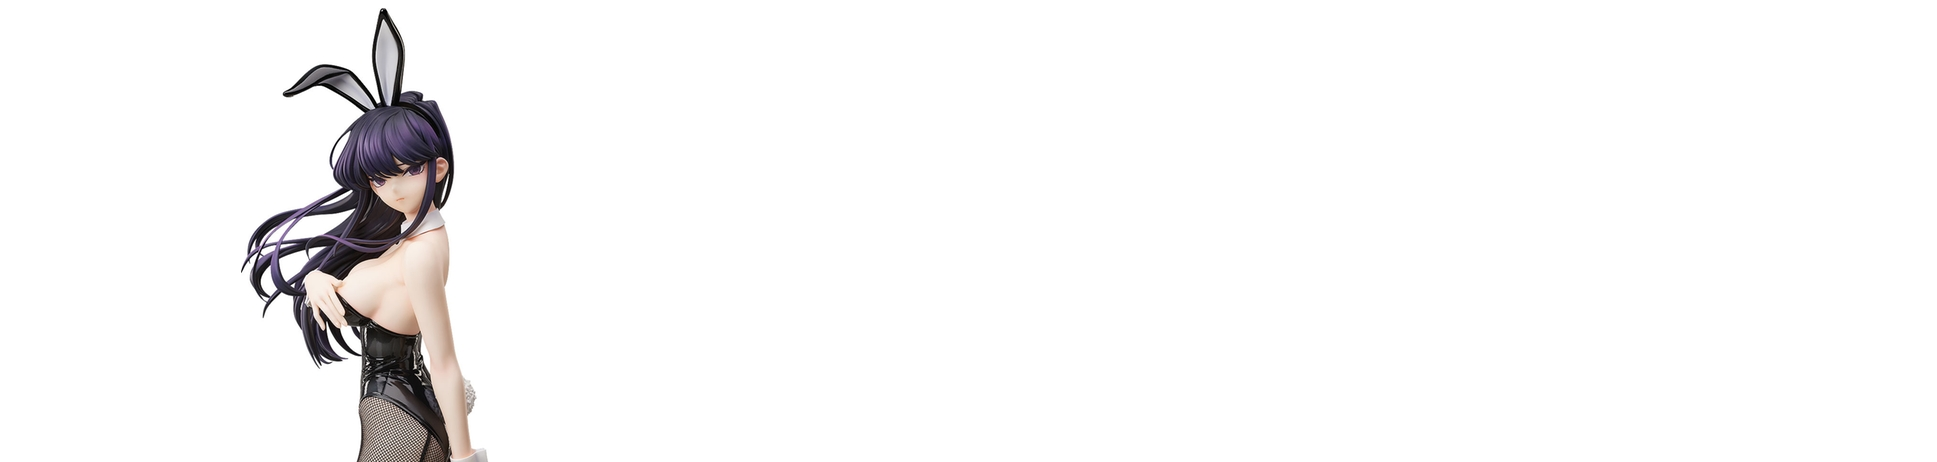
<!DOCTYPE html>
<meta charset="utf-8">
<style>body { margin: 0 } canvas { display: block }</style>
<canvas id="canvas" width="1937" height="462"></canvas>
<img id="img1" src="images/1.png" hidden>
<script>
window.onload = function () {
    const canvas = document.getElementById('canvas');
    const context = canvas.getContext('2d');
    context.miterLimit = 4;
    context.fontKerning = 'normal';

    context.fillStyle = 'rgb(255, 255, 255)';
    context.fillRect(0, 0, 1937, 462);
    context.drawImage(document.getElementById('img1'), 241, 8, 248, 454);
};
</script>
